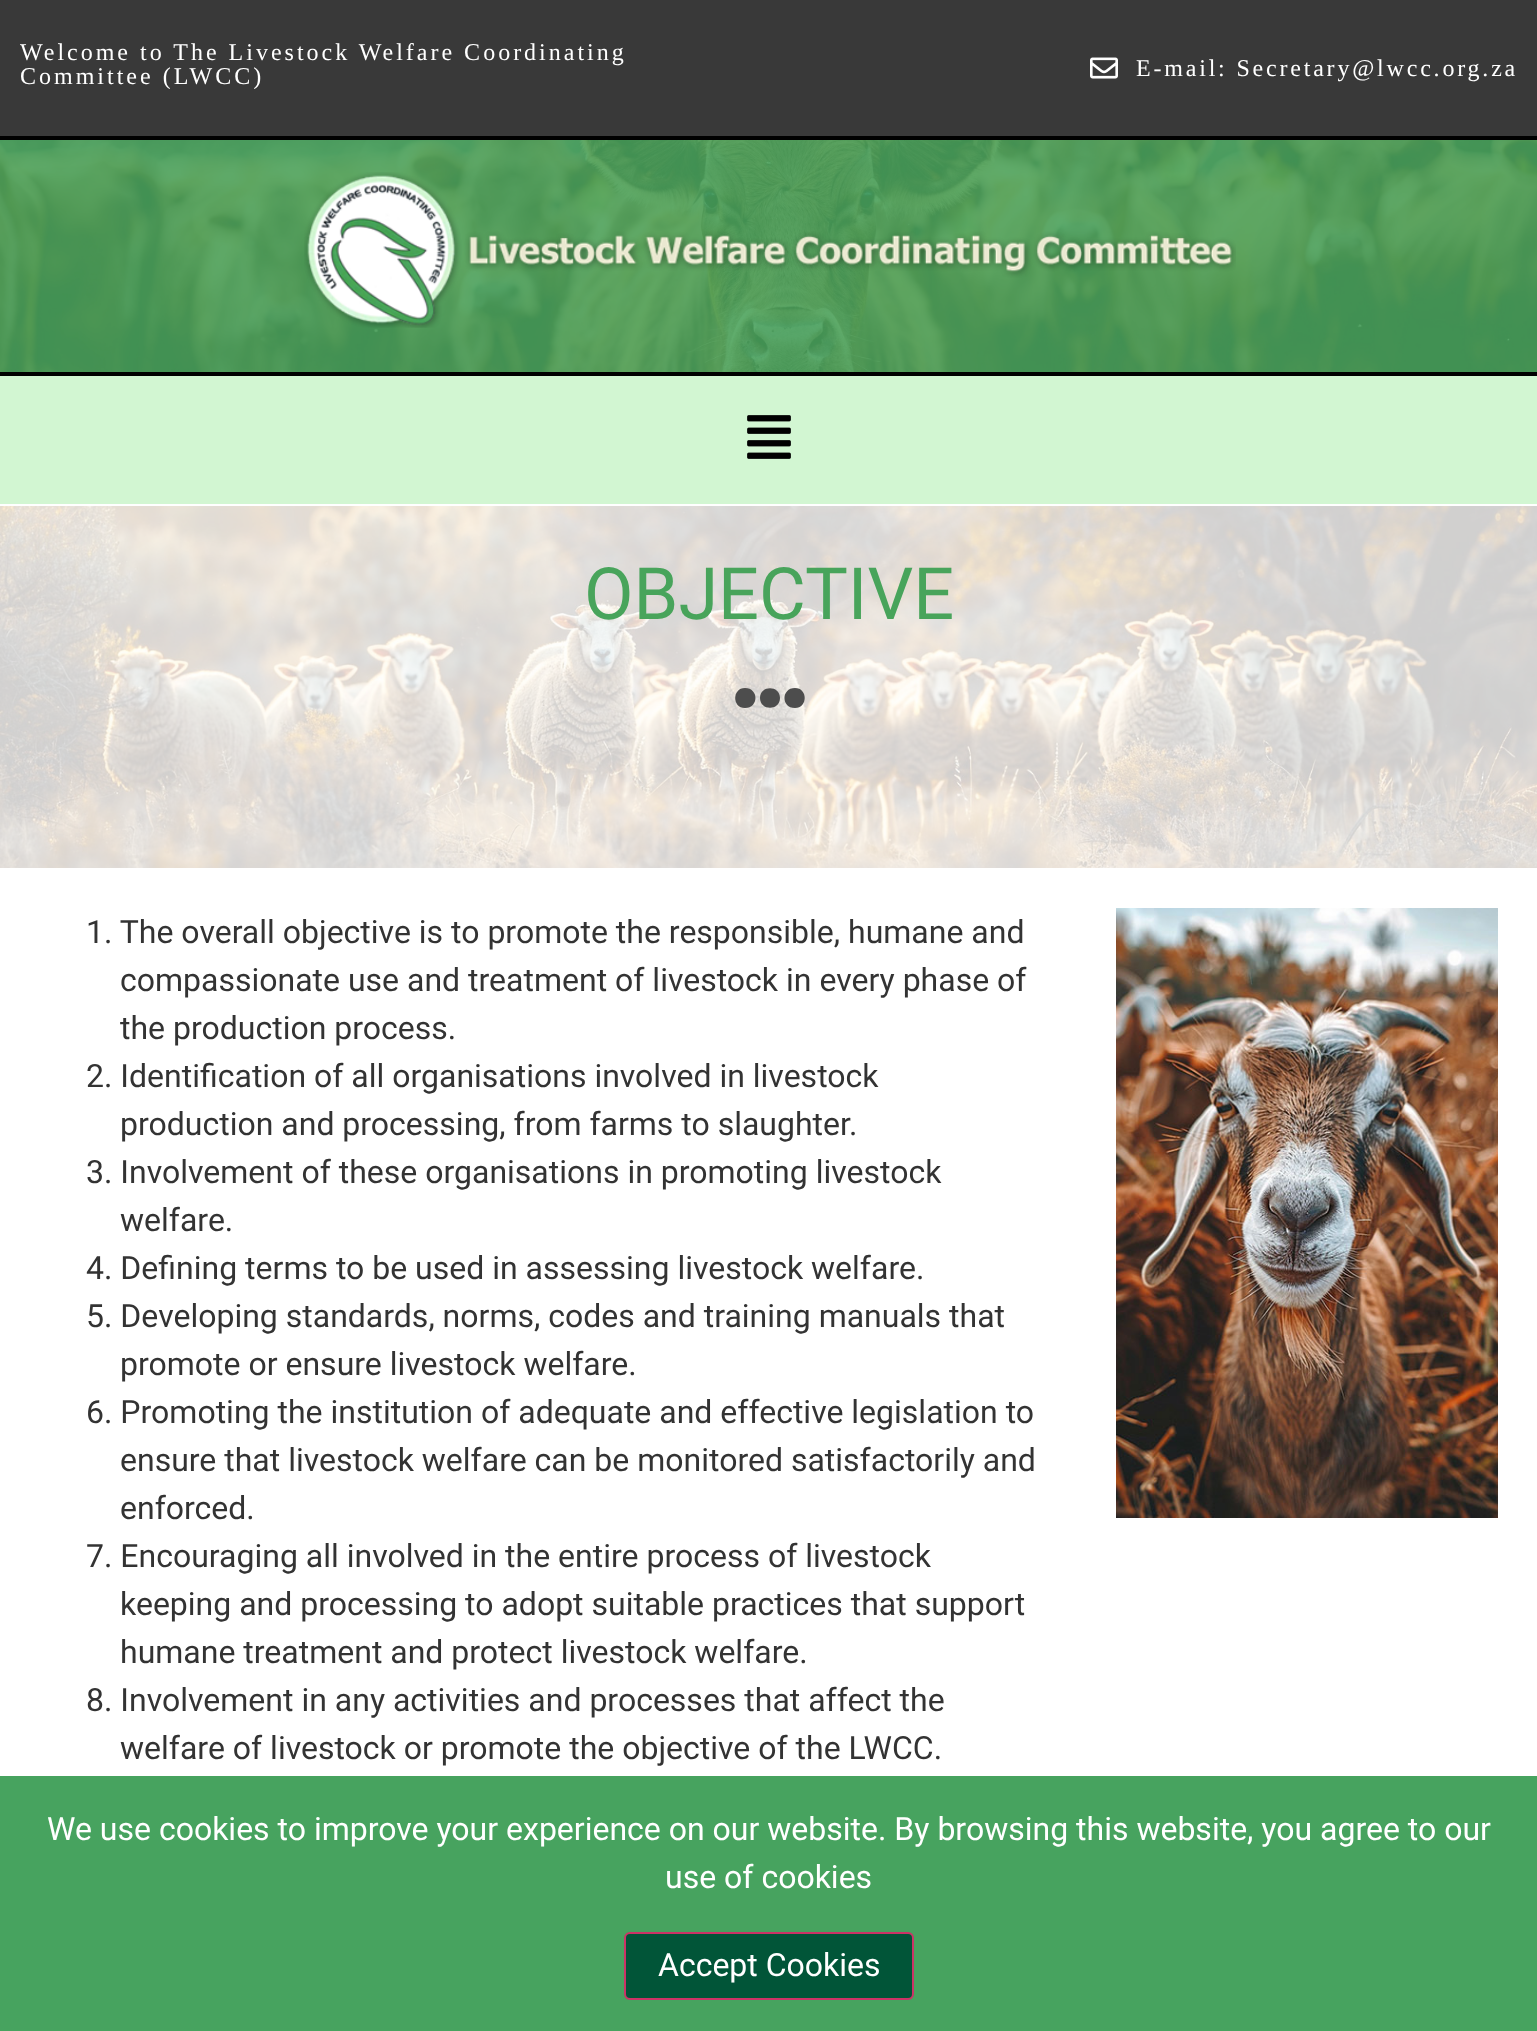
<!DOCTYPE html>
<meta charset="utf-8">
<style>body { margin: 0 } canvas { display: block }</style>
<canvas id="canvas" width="1537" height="2031"></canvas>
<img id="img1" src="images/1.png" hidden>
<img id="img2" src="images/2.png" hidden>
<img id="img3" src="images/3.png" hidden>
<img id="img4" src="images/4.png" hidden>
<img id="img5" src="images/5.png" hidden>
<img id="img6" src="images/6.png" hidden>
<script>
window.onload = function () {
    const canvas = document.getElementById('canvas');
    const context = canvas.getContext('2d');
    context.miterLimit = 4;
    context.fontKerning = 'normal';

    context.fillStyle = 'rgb(255, 255, 255)';
    context.fillRect(0, 0, 1537, 2031);
    context.fillStyle = 'rgb(57, 57, 57)';
    context.fillRect(0, 0, 1537, 136);
    context.drawImage(document.getElementById('img1'), 1090, 57, 28, 22);
    context.drawImage(document.getElementById('img2'), 0, 140, 1537, 232);
    context.fillStyle = 'rgb(0, 0, 0)';
    context.fillRect(0, 136, 1537, 4);
    context.fillRect(0, 372, 1537, 4);
    context.drawImage(document.getElementById('img3'), 304, 172, 932, 156);
    context.fillStyle = 'rgb(210, 246, 210)';
    context.fillRect(0, 376, 1537, 128);
    context.drawImage(document.getElementById('img4'), 747, 415, 44, 44);
    context.drawImage(document.getElementById('img5'), 0, 506, 1537, 362);
    context.fillStyle = 'rgb(77, 77, 77)';
    context.beginPath();
    context.moveTo(780, 698);
    context.bezierCurveTo(780, 711, 760, 711, 760, 698);
    context.bezierCurveTo(760, 685, 780, 685, 780, 698);
    context.closePath();
    context.moveTo(795, 688);
    context.bezierCurveTo(781, 688, 781, 708, 795, 708);
    context.bezierCurveTo(808, 708, 808, 688, 795, 688);
    context.closePath();
    context.moveTo(745, 688);
    context.bezierCurveTo(732, 688, 732, 708, 745, 708);
    context.bezierCurveTo(759, 708, 759, 688, 745, 688);
    context.closePath();
    context.fill();
    context.drawImage(document.getElementById('img6'), 1116, 908, 382, 610);
    context.fillStyle = 'rgb(71, 163, 95)';
    context.fillRect(0, 1776, 1537, 255);
    context.fillStyle = 'rgb(1, 85, 56)';
    context.beginPath();
    context.roundRect(625, 1933, 288, 66, 5);
    context.fill();
    context.strokeStyle = 'rgb(204, 51, 102)';
    context.lineWidth = 2;
    context.stroke();
    context.letterSpacing = '3px';
    context.font = '24px Liberation Serif';
    context.fillStyle = 'rgb(255, 255, 255)';
    context.fillText('Welcome to The Livestock Welfare Coordinating', 20, 60);
    context.fillText('Committee (LWCC)', 20, 84);
    context.letterSpacing = '2.8px';
    context.fillText('E-mail: Secretary@lwcc.org.za', 1136, 76);
    context.letterSpacing = '0px';
    context.font = '72px Roboto';
    context.fillStyle = 'rgb(72, 164, 91)';
    context.fillText('OBJECTIVE', 584, 619);
    context.font = '32px Roboto';
    context.fillStyle = 'rgb(51, 51, 51)';
    context.fillText('1. The overall objective is to promote the responsible, humane and', 86, 943);
    context.fillText('compassionate use and treatment of livestock in every phase of', 120, 991);
    context.fillText('the production process.', 120, 1039);
    context.fillText('2. Identification of all organisations involved in livestock', 86, 1087);
    context.fillText('production and processing, from farms to slaughter.', 120, 1135);
    context.fillText('3. Involvement of these organisations in promoting livestock', 86, 1183);
    context.fillText('welfare.', 120, 1231);
    context.fillText('4. Defining terms to be used in assessing livestock welfare.', 86, 1279);
    context.fillText('5. Developing standards, norms, codes and training manuals that', 86, 1327);
    context.fillText('promote or ensure livestock welfare.', 120, 1375);
    context.fillText('6. Promoting the institution of adequate and effective legislation to', 86, 1423);
    context.fillText('ensure that livestock welfare can be monitored satisfactorily and', 120, 1471);
    context.fillText('enforced.', 120, 1519);
    context.fillText('7. Encouraging all involved in the entire process of livestock', 86, 1567);
    context.fillText('keeping and processing to adopt suitable practices that support', 120, 1615);
    context.fillText('humane treatment and protect livestock welfare.', 120, 1663);
    context.fillText('8. Involvement in any activities and processes that affect the', 86, 1711);
    context.fillText('welfare of livestock or promote the objective of the LWCC.', 120, 1759);
    context.fillStyle = 'rgb(255, 255, 255)';
    context.fillText('We use cookies to improve your experience on our website. By browsing this website, you agree to our', 47, 1840);
    context.fillText('use of cookies', 665, 1888);
    context.fillText('Accept Cookies', 658, 1976);
};
</script>
